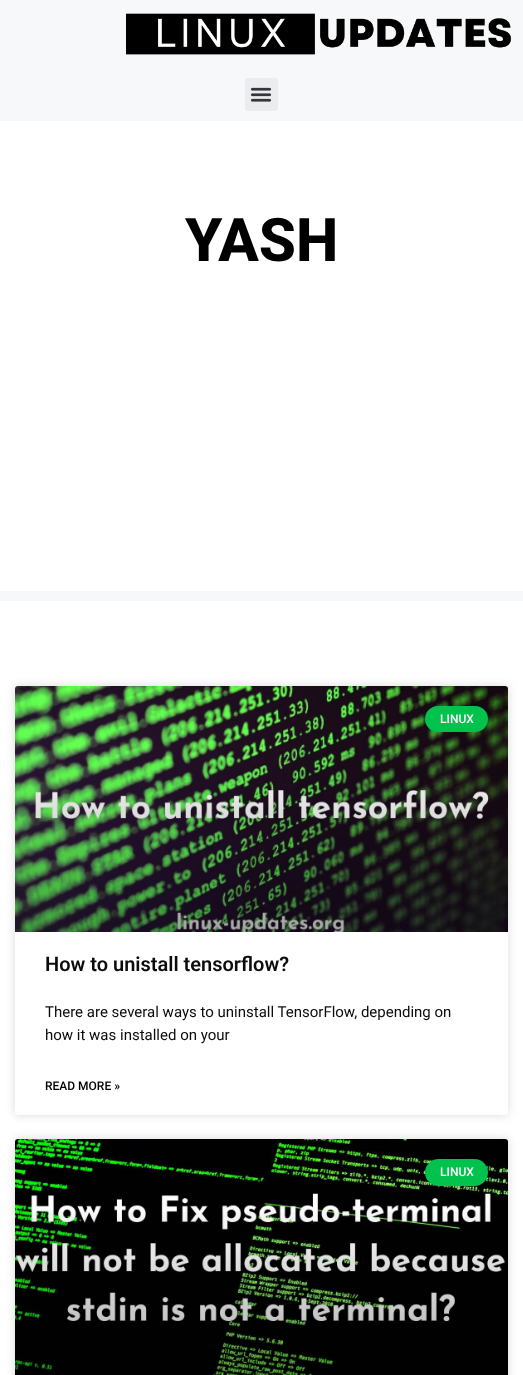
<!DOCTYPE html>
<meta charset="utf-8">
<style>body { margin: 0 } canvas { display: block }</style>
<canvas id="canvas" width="523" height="1375"></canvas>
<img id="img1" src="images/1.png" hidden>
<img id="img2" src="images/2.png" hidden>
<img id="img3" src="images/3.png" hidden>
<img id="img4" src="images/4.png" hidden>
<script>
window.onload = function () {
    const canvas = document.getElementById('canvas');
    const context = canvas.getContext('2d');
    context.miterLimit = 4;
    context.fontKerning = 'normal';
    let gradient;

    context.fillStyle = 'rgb(247, 248, 249)';
    context.fillRect(0, 0, 523, 1375);
    context.drawImage(document.getElementById('img1'), 126, 13, 386, 42);
    context.fillStyle = 'rgb(235, 236, 237)';
    context.beginPath();
    context.roundRect(245, 78, 33, 33, 3);
    context.fill();
    context.drawImage(document.getElementById('img2'), 250, 87, 22, 15);
    context.fillStyle = 'rgb(255, 255, 255)';
    context.fillRect(0, 121, 523, 470);
    context.fillRect(0, 601, 523, 774);
    context.fillStyle = 'rgba(0, 0, 0, 0.15)';
    context.filter = 'blur(5px)';
    context.beginPath();
    context.roundRect(15, 686, 493, 429, 3);
    context.fill();
    context.filter = 'none';
    context.fillStyle = 'rgb(255, 255, 255)';
    context.beginPath();
    context.roundRect(15, 686, 493, 429, 3);
    context.fill();
    context.drawImage(document.getElementById('img3'), 15, 686, 493, 246);
    gradient = context.createLinearGradient(262, 932, 262, 686);
    gradient.addColorStop(0, 'rgba(0, 0, 0, 0.35)');
    gradient.addColorStop(0.75, 'rgba(0, 0, 0, 0)');
    context.fillStyle = gradient;
    context.fillRect(15, 759, 493, 173);
    context.fillStyle = 'rgb(1, 194, 76)';
    context.beginPath();
    context.roundRect(425, 706, 63, 26, 13);
    context.fill();
    context.fillStyle = 'rgba(0, 0, 0, 0.15)';
    context.filter = 'blur(5px)';
    context.beginPath();
    context.roundRect(15, 1139, 493, 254, 3);
    context.fill();
    context.filter = 'none';
    context.drawImage(document.getElementById('img4'), 15, 1139, 493, 236);
    gradient = context.createLinearGradient(262, 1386, 262, 1139);
    gradient.addColorStop(0, 'rgba(0, 0, 0, 0.35)');
    gradient.addColorStop(0.75, 'rgba(0, 0, 0, 0)');
    context.fillStyle = gradient;
    context.fillRect(15, 1212, 490, 163);
    context.fillStyle = 'rgb(1, 194, 76)';
    context.beginPath();
    context.roundRect(425, 1159, 63, 27, 13.5);
    context.fill();
    context.font = '800 60px Roboto';
    context.fillStyle = 'rgb(0, 0, 0)';
    context.fillText('YASH', 185, 261);
    context.font = '500 12px Roboto';
    context.fillStyle = 'rgb(255, 255, 255)';
    context.fillText('LINUX', 440, 723);
    context.font = '600 20px Roboto';
    context.fillStyle = 'rgb(12, 12, 12)';
    context.fillText('How to unistall tensorflow?', 45, 971);
    context.font = '15px Roboto';
    context.fillText('There are several ways to uninstall TensorFlow, depending on', 45, 1017);
    context.fillText('how it was installed on your', 45, 1040);
    context.font = '500 12px Roboto';
    context.fillStyle = 'rgb(0, 0, 0)';
    context.fillText('READ MORE »', 45, 1090);
    context.fillStyle = 'rgb(255, 255, 255)';
    context.fillText('LINUX', 440, 1176);
};
</script>
